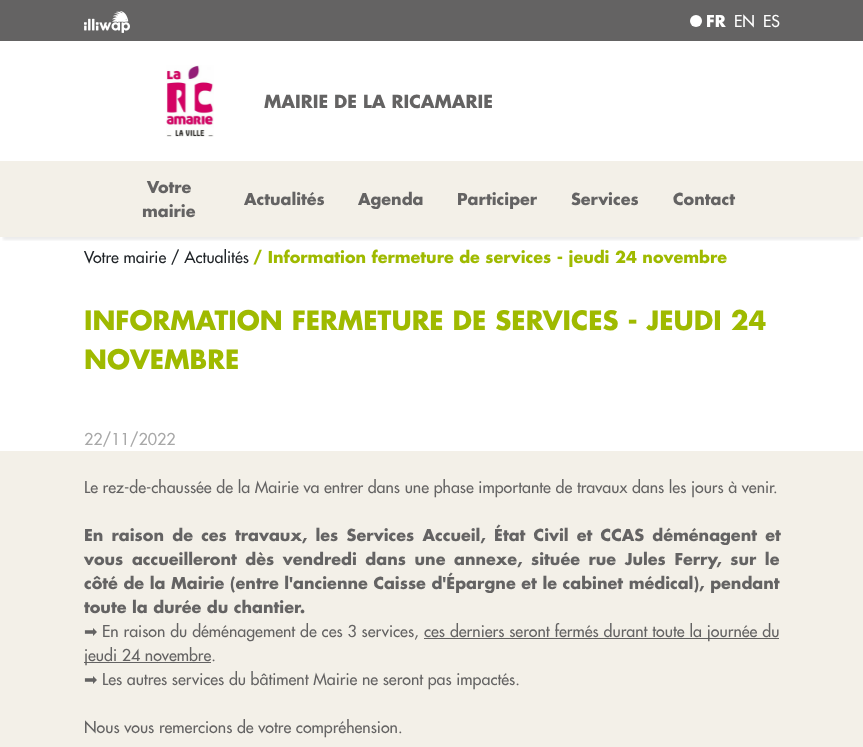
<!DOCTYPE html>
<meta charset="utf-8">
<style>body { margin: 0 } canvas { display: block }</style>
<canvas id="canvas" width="863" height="747"></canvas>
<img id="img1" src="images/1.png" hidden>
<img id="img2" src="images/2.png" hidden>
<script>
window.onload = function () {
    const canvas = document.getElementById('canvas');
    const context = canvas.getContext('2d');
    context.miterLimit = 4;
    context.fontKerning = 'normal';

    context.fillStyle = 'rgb(255, 255, 255)';
    context.fillRect(0, 0, 863, 747);
    context.save();
    context.beginPath();
    context.rect(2, 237, 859, 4);
    context.clip();
    context.fillStyle = 'rgba(0, 0, 0, 0.08)';
    context.filter = 'blur(1.5px)';
    context.beginPath();
    context.rect(3, 9, 857, 231);
    context.fill();
    context.filter = 'none';
    context.restore();
    context.fillStyle = 'rgb(100, 99, 99)';
    context.fillRect(0, 0, 863, 41);
    context.drawImage(document.getElementById('img1'), 84, 11, 46, 22);
    context.fillStyle = 'rgb(255, 255, 255)';
    context.beginPath();
    context.arc(696, 21, 6, 0, 2 * Math.PI);
    context.fill();
    context.drawImage(document.getElementById('img2'), 166, 65, 48, 72);
    context.fillStyle = 'rgb(243, 240, 232)';
    context.fillRect(0, 161, 863, 76);
    context.fillRect(0, 451, 863, 296);
    context.fillStyle = 'rgb(100, 99, 99)';
    context.fillRect(424, 638, 355, 1);
    context.fillRect(84, 662, 127, 1);
    context.font = 'bold 16px Futura';
    context.fillStyle = 'rgb(255, 255, 255)';
    context.fillText('FR', 706, 27);
    context.font = '16px Futura';
    context.fillText('EN', 734, 27);
    context.fillText('ES', 763, 27);
    context.font = 'bold 17.6px Futura';
    context.fillStyle = 'rgb(100, 99, 99)';
    context.fillText('MAIRIE DE LA RICAMARIE', 264, 108);
    context.font = 'bold 16px Futura';
    context.fillText('Votre', 147, 193);
    context.fillText('mairie', 142, 217);
    context.fillText('Actualités', 244, 205);
    context.fillText('Agenda', 358, 205);
    context.fillText('Participer', 457, 205);
    context.fillText('Services', 571, 205);
    context.fillText('Contact', 673, 205);
    context.font = '16px Futura';
    context.fillStyle = 'rgb(33, 37, 41)';
    context.fillText('Votre mairie / Actualités', 84, 263);
    context.font = 'bold 16px Futura';
    context.fillStyle = 'rgb(159, 186, 0)';
    context.fillText('/ Information fermeture de services - jeudi 24 novembre', 253, 263);
    context.font = 'bold 26px Futura';
    context.fillText('INFORMATION FERMETURE DE SERVICES - JEUDI 24', 84, 330);
    context.fillText('NOVEMBRE', 84, 369);
    context.font = '16px Futura';
    context.fillStyle = 'rgb(168, 168, 168)';
    context.fillText('22/11/2022', 84, 445);
    context.fillStyle = 'rgb(100, 99, 99)';
    context.fillText('Le rez-de-chaussée de la Mairie va entrer dans une phase importante de travaux dans les jours à venir.', 84, 493);
    context.wordSpacing = '2.75px';
    context.font = 'bold 16px Futura';
    context.fillText('En raison de ces travaux, les Services Accueil, État Civil et CCAS déménagent et', 84, 541);
    context.wordSpacing = '3.1px';
    context.fillText('vous accueilleront dès vendredi dans une annexe, située rue Jules Ferry, sur le', 84, 565);
    context.wordSpacing = '0.1px';
    context.fillText('côté de la Mairie (entre l\'ancienne Caisse d\'Épargne et le cabinet médical), pendant', 84, 589);
    context.wordSpacing = '0px';
    context.fillText('toute la durée du chantier.', 84, 613);
    context.font = '16px DejaVu Sans';
    context.fillText('➡', 84, 637);
    context.wordSpacing = '0.25px';
    context.font = '16px Futura';
    context.fillText('En raison du déménagement de ces 3 services,', 102, 637);
    context.fillText('ces derniers seront fermés durant toute la journée du', 424, 637);
    context.wordSpacing = '0px';
    context.fillText('jeudi 24 novembre.', 84, 661);
    context.font = '16px DejaVu Sans';
    context.fillText('➡', 84, 685);
    context.font = '16px Futura';
    context.fillText('Les autres services du bâtiment Mairie ne seront pas impactés.', 102, 685);
    context.fillText('Nous vous remercions de votre compréhension.', 84, 733);
};
</script>
